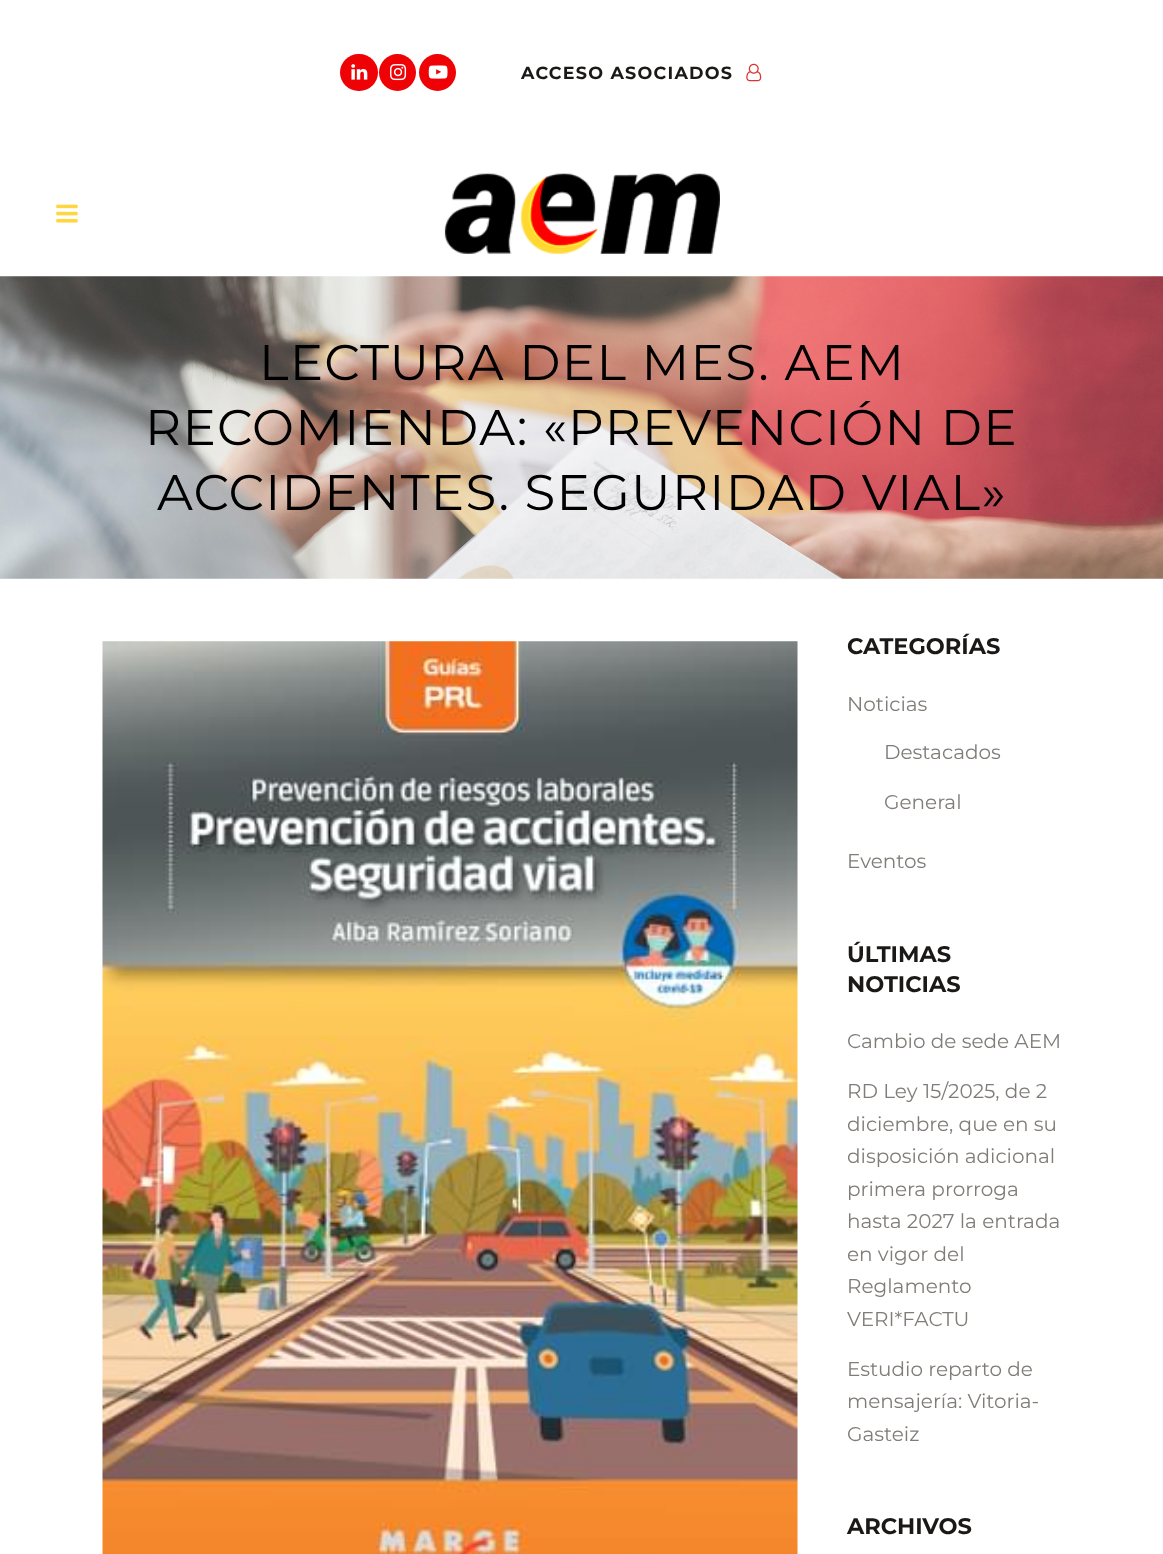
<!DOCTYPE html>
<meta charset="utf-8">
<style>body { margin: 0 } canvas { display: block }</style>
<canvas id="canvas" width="1163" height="1554"></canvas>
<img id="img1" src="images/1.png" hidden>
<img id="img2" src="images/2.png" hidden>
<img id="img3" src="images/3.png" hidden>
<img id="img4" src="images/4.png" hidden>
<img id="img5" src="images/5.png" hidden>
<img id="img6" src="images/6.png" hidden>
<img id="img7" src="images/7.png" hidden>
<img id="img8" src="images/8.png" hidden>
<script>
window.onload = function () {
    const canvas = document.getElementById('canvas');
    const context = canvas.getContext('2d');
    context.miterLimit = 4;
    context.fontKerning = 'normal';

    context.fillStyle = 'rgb(255, 255, 255)';
    context.fillRect(0, 0, 1163, 1554);
    context.fillStyle = 'rgb(238, 2, 5)';
    context.beginPath();
    context.roundRect(340, 54, 38, 37, 18.5);
    context.fill();
    context.drawImage(document.getElementById('img1'), 351, 64, 17, 16);
    context.beginPath();
    context.arc(397.5, 72.5, 18.5, 0, 2 * Math.PI);
    context.fill();
    context.drawImage(document.getElementById('img2'), 390, 64, 17, 17);
    context.beginPath();
    context.arc(437.5, 72.5, 18.5, 0, 2 * Math.PI);
    context.fill();
    context.drawImage(document.getElementById('img3'), 428, 65, 20, 14);
    context.drawImage(document.getElementById('img4'), 746, 63, 16, 19);
    context.drawImage(document.getElementById('img5'), 56, 204, 22, 19);
    context.drawImage(document.getElementById('img6'), 444, 173, 276, 81);
    context.drawImage(document.getElementById('img7'), 0, 276, 1163, 303);
    context.drawImage(document.getElementById('img8'), 102, 641, 696, 913);
    context.letterSpacing = '1.25px';
    context.font = 'bold 17.5px Montserrat';
    context.fillStyle = 'rgb(26, 25, 23)';
    context.fillText('ACCESO ASOCIADOS', 521, 79);
    context.font = '50px Montserrat';
    context.fillStyle = 'rgb(0, 0, 0)';
    context.fillText('LECTURA DEL MES. AEM', 259, 380);
    context.fillText('RECOMIENDA: «PREVENCIÓN DE', 145, 445);
    context.fillText('ACCIDENTES. SEGURIDAD VIAL»', 157, 510);
    context.letterSpacing = '0px';
    context.font = 'bold 22.5px Montserrat';
    context.fillStyle = 'rgb(26, 25, 23)';
    context.fillText('CATEGORÍAS', 847, 654);
    context.font = '20px Montserrat';
    context.fillStyle = 'rgb(128, 125, 121)';
    context.fillText('Noticias', 847, 711);
    context.fillText('Destacados', 884, 759);
    context.fillText('General', 884, 809);
    context.fillText('Eventos', 847, 868);
    context.font = 'bold 22.5px Montserrat';
    context.fillStyle = 'rgb(26, 25, 23)';
    context.fillText('ÚLTIMAS', 847, 962);
    context.fillText('NOTICIAS', 847, 992);
    context.font = '20px Montserrat';
    context.fillStyle = 'rgb(128, 125, 121)';
    context.fillText('Cambio de sede AEM', 847, 1048);
    context.fillText('RD Ley 15/2025, de 2', 847, 1098);
    context.fillText('diciembre, que en su', 847, 1131);
    context.fillText('disposición adicional', 847, 1163);
    context.fillText('primera prorroga', 847, 1196);
    context.fillText('hasta 2027 la entrada', 847, 1228);
    context.fillText('en vigor del', 847, 1261);
    context.fillText('Reglamento', 847, 1293);
    context.fillText('VERI*FACTU', 847, 1326);
    context.fillText('Estudio reparto de', 847, 1376);
    context.fillText('mensajería: Vitoria-', 847, 1408);
    context.fillText('Gasteiz', 847, 1441);
    context.font = 'bold 22.5px Montserrat';
    context.fillStyle = 'rgb(26, 25, 23)';
    context.fillText('ARCHIVOS', 847, 1534);
};
</script>
